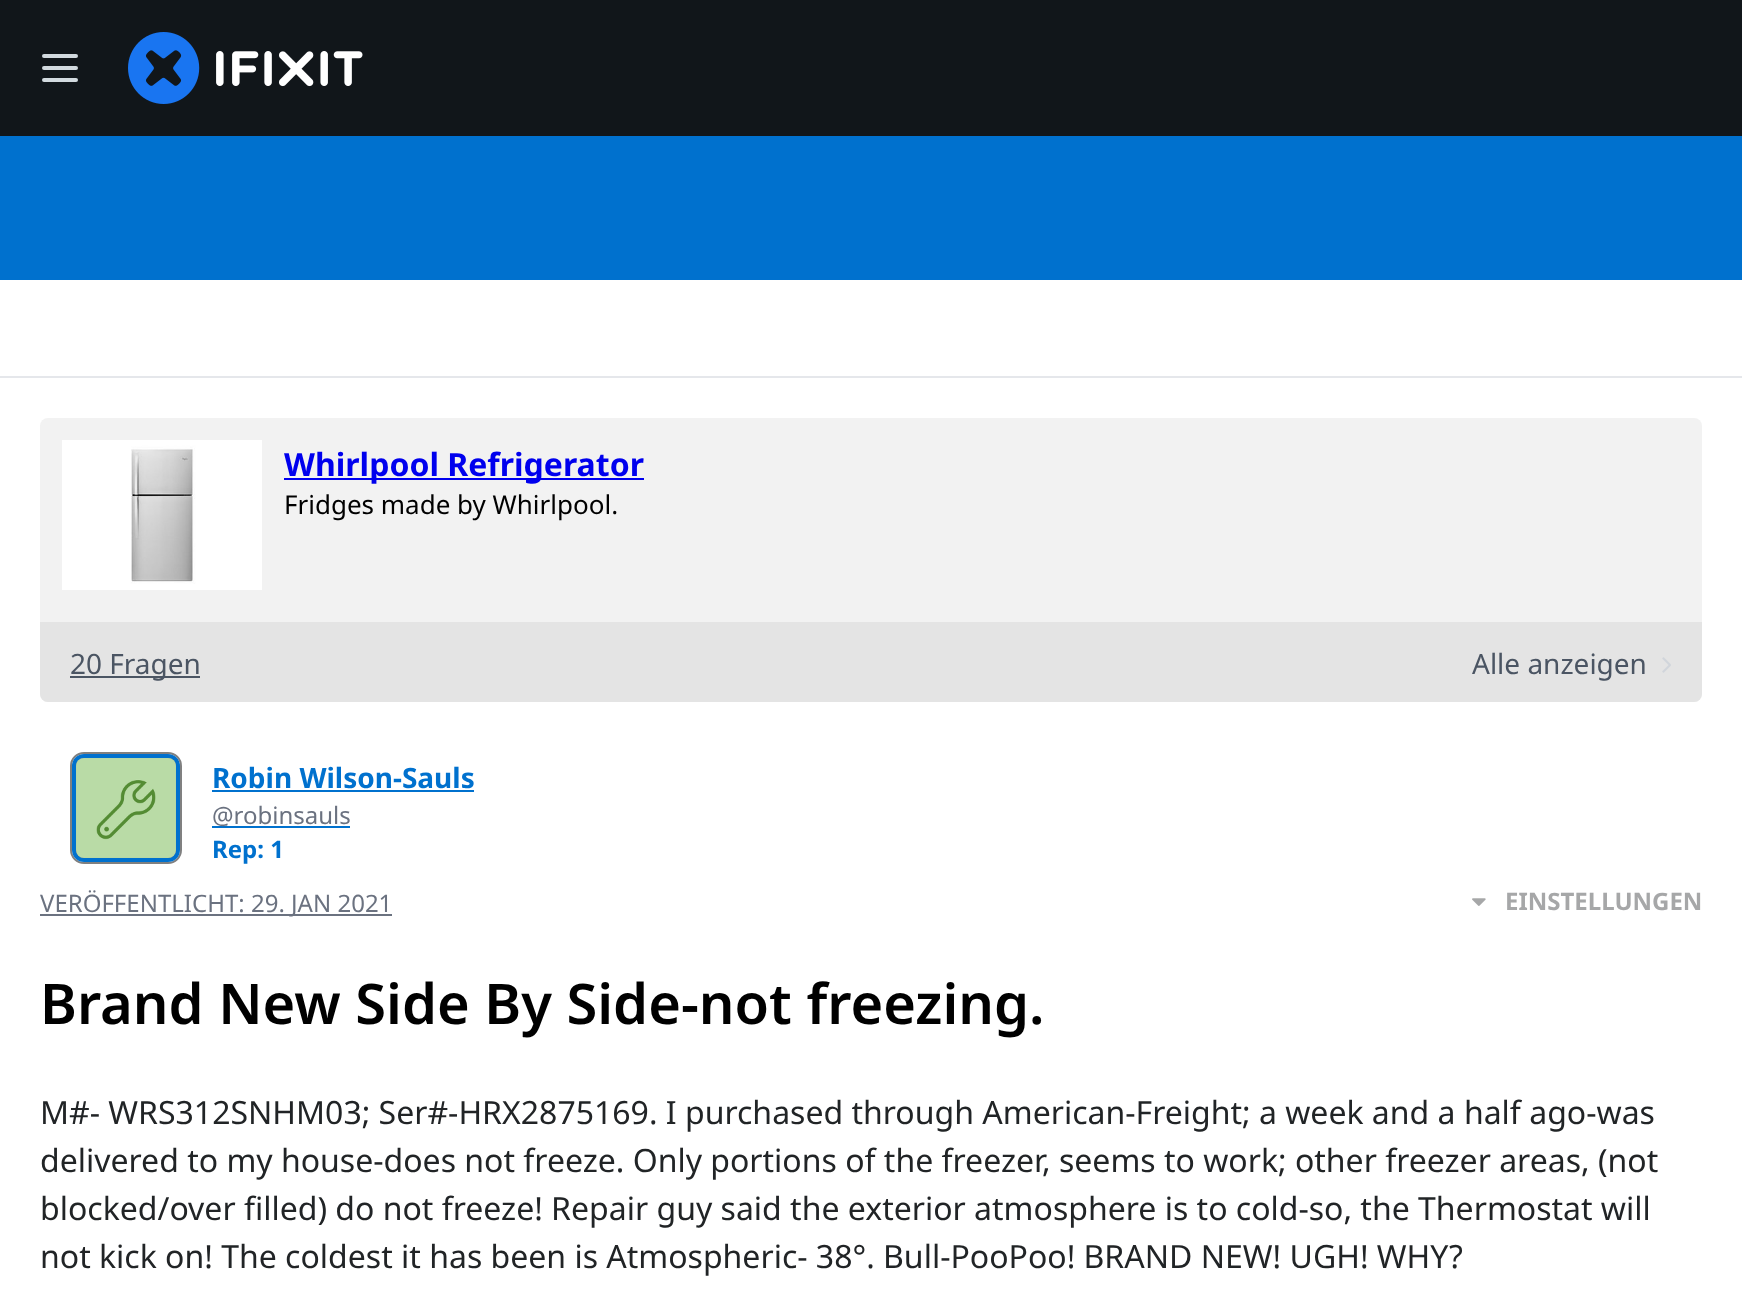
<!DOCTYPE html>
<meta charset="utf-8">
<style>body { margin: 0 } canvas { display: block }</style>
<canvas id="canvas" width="1742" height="1303"></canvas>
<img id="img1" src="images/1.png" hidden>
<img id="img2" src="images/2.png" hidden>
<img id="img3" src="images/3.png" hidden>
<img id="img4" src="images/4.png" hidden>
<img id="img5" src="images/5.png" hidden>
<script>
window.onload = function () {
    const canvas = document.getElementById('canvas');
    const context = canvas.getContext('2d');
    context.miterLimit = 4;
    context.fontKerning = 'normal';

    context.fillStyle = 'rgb(255, 255, 255)';
    context.fillRect(0, 0, 1742, 1303);
    context.fillStyle = 'rgb(17, 22, 26)';
    context.fillRect(0, 0, 1742, 136);
    context.beginPath();
    context.moveTo(44, 68);
    context.lineTo(76, 68);
    context.moveTo(44, 56);
    context.lineTo(76, 56);
    context.moveTo(44, 80);
    context.lineTo(76, 80);
    context.strokeStyle = 'rgb(210, 218, 223)';
    context.lineWidth = 4;
    context.lineCap = 'round';
    context.lineJoin = 'round';
    context.stroke();
    context.drawImage(document.getElementById('img1'), 128, 32, 235, 72);
    context.fillStyle = 'rgb(0, 113, 206)';
    context.fillRect(0, 136, 1742, 144);
    context.fillStyle = 'rgb(229, 231, 235)';
    context.fillRect(0, 376, 1742, 2);
    context.fillStyle = 'rgb(242, 242, 242)';
    context.beginPath();
    context.roundRect(40, 418, 1662, 284, 8);
    context.fill();
    context.drawImage(document.getElementById('img2'), 62, 440, 200, 150);
    context.fillStyle = 'rgb(0, 0, 238)';
    context.fillRect(284, 478, 360, 2);
    context.fillStyle = 'rgb(228, 228, 228)';
    context.beginPath();
    context.roundRect(40, 622, 1662, 80, [0, 0, 8, 8]);
    context.fill();
    context.fillStyle = 'rgb(75, 85, 99)';
    context.fillRect(70, 676, 130, 2);
    context.drawImage(document.getElementById('img3'), 1662, 657, 9, 16);
    context.beginPath();
    context.roundRect(71, 753, 110, 110, 13);
    context.strokeStyle = 'rgb(128, 128, 128)';
    context.lineWidth = 2;
    context.lineJoin = 'miter';
    context.stroke();
    context.fillStyle = 'rgba(0, 0, 0, 0.5)';
    context.beginPath();
    context.roundRect(74, 756, 104, 104, 10);
    context.fill();
    context.strokeStyle = 'rgb(0, 113, 206)';
    context.lineWidth = 4;
    context.stroke();
    context.drawImage(document.getElementById('img4'), 76, 758, 100, 100);
    context.fillStyle = 'rgb(0, 113, 206)';
    context.fillRect(212, 790, 262, 2);
    context.fillRect(212, 826, 138, 2);
    context.fillStyle = 'rgb(107, 114, 128)';
    context.fillRect(40, 914, 352, 2);
    context.drawImage(document.getElementById('img5'), 1472, 898, 14, 8);
    context.font = 'bold 32px Noto Sans';
    context.fillStyle = 'rgb(0, 0, 238)';
    context.fillText('Whirlpool Refrigerator', 284, 476);
    context.font = '26px Noto Sans';
    context.fillStyle = 'rgb(0, 0, 0)';
    context.fillText('Fridges made by Whirlpool.', 284, 514);
    context.font = '28px Noto Sans';
    context.fillStyle = 'rgb(75, 85, 99)';
    context.fillText('20 Fragen', 70, 674);
    context.fillText('Alle anzeigen', 1472, 674);
    context.font = 'bold 28px Noto Sans';
    context.fillStyle = 'rgb(0, 113, 206)';
    context.fillText('Robin Wilson-Sauls', 212, 788);
    context.font = '24px Noto Sans';
    context.fillStyle = 'rgb(107, 114, 128)';
    context.fillText('@robinsauls', 212, 824);
    context.font = 'bold 24px Noto Sans';
    context.fillStyle = 'rgb(0, 113, 206)';
    context.fillText('Rep: 1', 212, 858);
    context.font = '24px Noto Sans';
    context.fillStyle = 'rgb(107, 114, 128)';
    context.fillText('VERÖFFENTLICHT: 29. JAN 2021', 40, 912);
    context.font = 'bold 24px Noto Sans';
    context.fillStyle = 'rgb(166, 167, 168)';
    context.fillText('EINSTELLUNGEN', 1505, 910);
    context.font = '600 56px Noto Sans';
    context.fillStyle = 'rgb(0, 0, 0)';
    context.fillText('Brand New Side By Side-not freezing.', 40, 1024);
    context.font = '32px Noto Sans';
    context.fillStyle = 'rgb(33, 36, 38)';
    context.fillText('M#- WRS312SNHM03; Ser#-HRX2875169. I purchased through American-Freight; a week and a half ago-was', 40, 1124);
    context.fillText('delivered to my house-does not freeze. Only portions of the freezer, seems to work; other freezer areas, (not', 40, 1172);
    context.fillText('blocked/over filled) do not freeze! Repair guy said the exterior atmosphere is to cold-so, the Thermostat will', 40, 1220);
    context.fillText('not kick on! The coldest it has been is Atmospheric- 38°. Bull-PooPoo! BRAND NEW! UGH! WHY?', 40, 1268);
};
</script>
